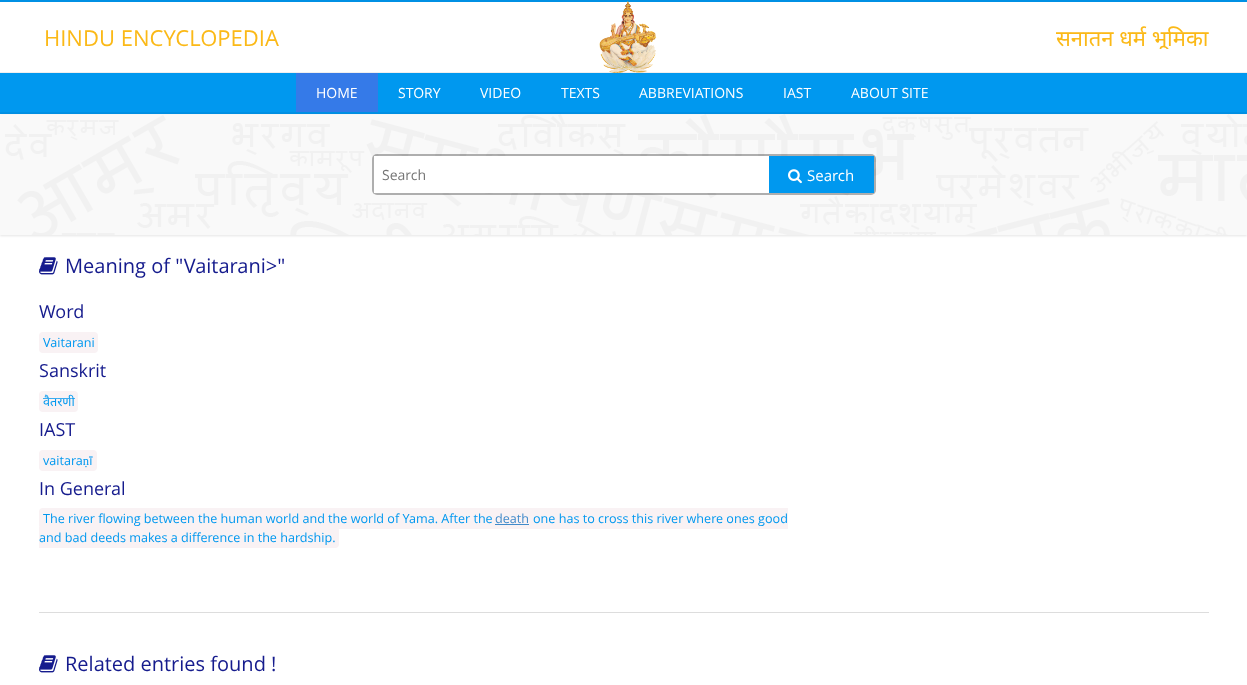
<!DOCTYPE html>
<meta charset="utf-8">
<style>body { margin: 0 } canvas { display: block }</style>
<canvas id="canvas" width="1247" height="685"></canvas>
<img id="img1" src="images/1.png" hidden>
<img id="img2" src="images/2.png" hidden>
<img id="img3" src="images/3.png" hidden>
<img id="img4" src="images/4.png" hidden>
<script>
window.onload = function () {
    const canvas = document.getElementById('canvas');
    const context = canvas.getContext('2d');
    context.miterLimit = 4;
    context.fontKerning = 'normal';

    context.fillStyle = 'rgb(255, 255, 255)';
    context.fillRect(0, 0, 1247, 685);
    context.fillStyle = 'rgb(0, 144, 228)';
    context.fillRect(0, 0, 1247, 2);
    context.fillStyle = 'rgb(240, 239, 239)';
    context.fillRect(0, 72, 1247, 1);
    context.drawImage(document.getElementById('img1'), 599, 1, 58, 72);
    context.fillStyle = 'rgb(0, 152, 239)';
    context.fillRect(0, 73, 1247, 39);
    context.fillStyle = 'rgb(0, 144, 228)';
    context.fillRect(0, 112, 1247, 2);
    context.fillStyle = 'rgb(53, 122, 232)';
    context.fillRect(296, 73, 82, 39);
    context.fillStyle = 'rgba(0, 0, 0, 0.1)';
    context.filter = 'blur(1px)';
    context.beginPath();
    context.rect(0, 115, 1247, 121);
    context.fill();
    context.filter = 'none';
    context.fillStyle = 'rgb(249, 249, 249)';
    context.fillRect(0, 115, 1247, 120);
    context.drawImage(document.getElementById('img2'), 5, 114, 1242, 121);
    context.fillStyle = 'rgba(0, 0, 0, 0.3)';
    context.beginPath();
    context.roundRect(372, 154, 504, 41, 5);
    context.fill();
    context.fillStyle = 'rgb(255, 255, 255)';
    context.fillRect(374, 156, 395, 37);
    context.fillStyle = 'rgb(0, 152, 239)';
    context.fillRect(769, 156, 105, 37);
    context.drawImage(document.getElementById('img3'), 788, 169, 14, 15);
    context.drawImage(document.getElementById('img4'), 39, 257, 19, 18);
    context.fillStyle = 'rgb(221, 221, 221)';
    context.fillRect(39, 612, 1170, 1);
    context.fillStyle = 'rgb(249, 242, 244)';
    context.beginPath();
    context.roundRect(39, 332, 59, 21, 4);
    context.fill();
    context.beginPath();
    context.roundRect(39, 391, 39, 21, 4);
    context.fill();
    context.beginPath();
    context.roundRect(39, 450, 58, 21, 4);
    context.fill();
    context.beginPath();
    context.roundRect(39, 508, 456, 21, [4, 0, 0, 4]);
    context.fill();
    context.fillRect(495, 508, 293, 21);
    context.fillStyle = 'rgb(66, 139, 202)';
    context.fillRect(495, 524, 34, 1);
    context.fillStyle = 'rgb(249, 242, 244)';
    context.beginPath();
    context.roundRect(39, 527, 300, 21, [0, 4, 4, 0]);
    context.fill();
    context.drawImage(document.getElementById('img4'), 39, 655, 19, 18);
    context.font = '22px Open Sans';
    context.fillStyle = 'rgb(251, 185, 23)';
    context.fillText('HINDU ENCYCLOPEDIA', 44, 46);
    context.save();
    context.beginPath();
    context.rect(1056, 25, 153, 24);
    context.clip();
    context.font = '22px Noto Sans';
    context.fillText('सनातन धर्म भूमिका', 1056, 46);
    context.restore();
    context.font = '14px Open Sans';
    context.fillStyle = 'rgb(255, 255, 255)';
    context.fillText('HOME', 316, 98);
    context.fillText('STORY', 398, 98);
    context.fillText('VIDEO', 480, 98);
    context.fillText('TEXTS', 561, 98);
    context.fillText('ABBREVIATIONS', 639, 98);
    context.fillText('IAST', 783, 98);
    context.fillText('ABOUT SITE', 851, 98);
    context.fillStyle = 'rgb(117, 117, 117)';
    context.fillText('Search', 382, 180);
    context.font = '15px Open Sans';
    context.fillStyle = 'rgb(255, 255, 255)';
    context.fillText('Search', 807, 181);
    context.font = '20px Open Sans';
    context.fillStyle = 'rgb(21, 27, 141)';
    context.fillText('Meaning of "Vaitarani>"', 65, 273);
    context.font = '18px Open Sans';
    context.fillText('Word', 39, 318);
    context.font = '12.6px Open Sans';
    context.fillStyle = 'rgb(0, 152, 239)';
    context.fillText('Vaitarani', 43, 347);
    context.font = '18px Open Sans';
    context.fillStyle = 'rgb(21, 27, 141)';
    context.fillText('Sanskrit', 39, 377);
    context.save();
    context.beginPath();
    context.rect(39, 292, 1170, 320);
    context.clip();
    context.font = '12.6px Noto Sans';
    context.fillStyle = 'rgb(0, 152, 239)';
    context.fillText('वैतरणी', 43, 406);
    context.restore();
    context.fillText('IAST', 39, 436);
    context.font = '12.6px Open Sans';
    context.fillStyle = 'rgb(0, 152, 239)';
    context.fillText('vaitaraṇī', 43, 465);
    context.font = '18px Open Sans';
    context.fillStyle = 'rgb(21, 27, 141)';
    context.fillText('In General', 39, 495);
    context.font = '12.6px Open Sans';
    context.fillStyle = 'rgb(0, 152, 239)';
    context.fillText('The river flowing between the human world and the world of Yama. After the', 43, 523);
    context.fillStyle = 'rgb(66, 139, 202)';
    context.fillText('death', 495, 523);
    context.fillStyle = 'rgb(0, 152, 239)';
    context.fillText('one has to cross this river where ones good', 533, 523);
    context.fillText('and bad deeds makes a difference in the hardship.', 39, 542);
    context.font = '20px Open Sans';
    context.fillStyle = 'rgb(21, 27, 141)';
    context.fillText('Related entries found !', 65, 671);
};
</script>
